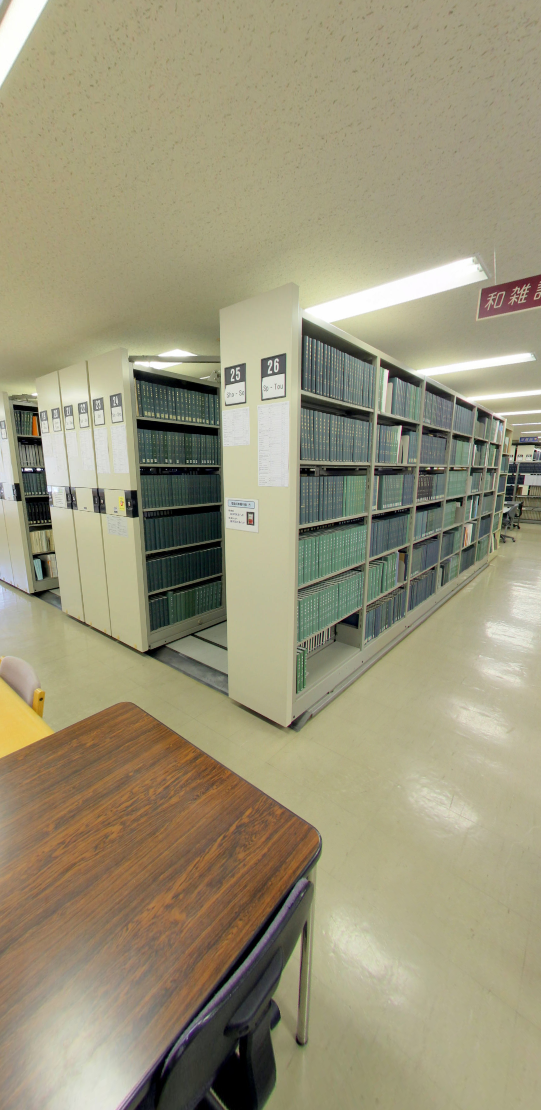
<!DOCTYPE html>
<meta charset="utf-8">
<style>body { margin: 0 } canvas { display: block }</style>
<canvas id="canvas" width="541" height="1110"></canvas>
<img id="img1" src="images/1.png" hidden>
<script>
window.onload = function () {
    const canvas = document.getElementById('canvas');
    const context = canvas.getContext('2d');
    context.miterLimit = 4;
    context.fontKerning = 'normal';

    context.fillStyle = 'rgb(255, 255, 255)';
    context.fillRect(0, 0, 541, 1110);
    context.drawImage(document.getElementById('img1'), 0, 0, 541, 1110);
};
</script>
